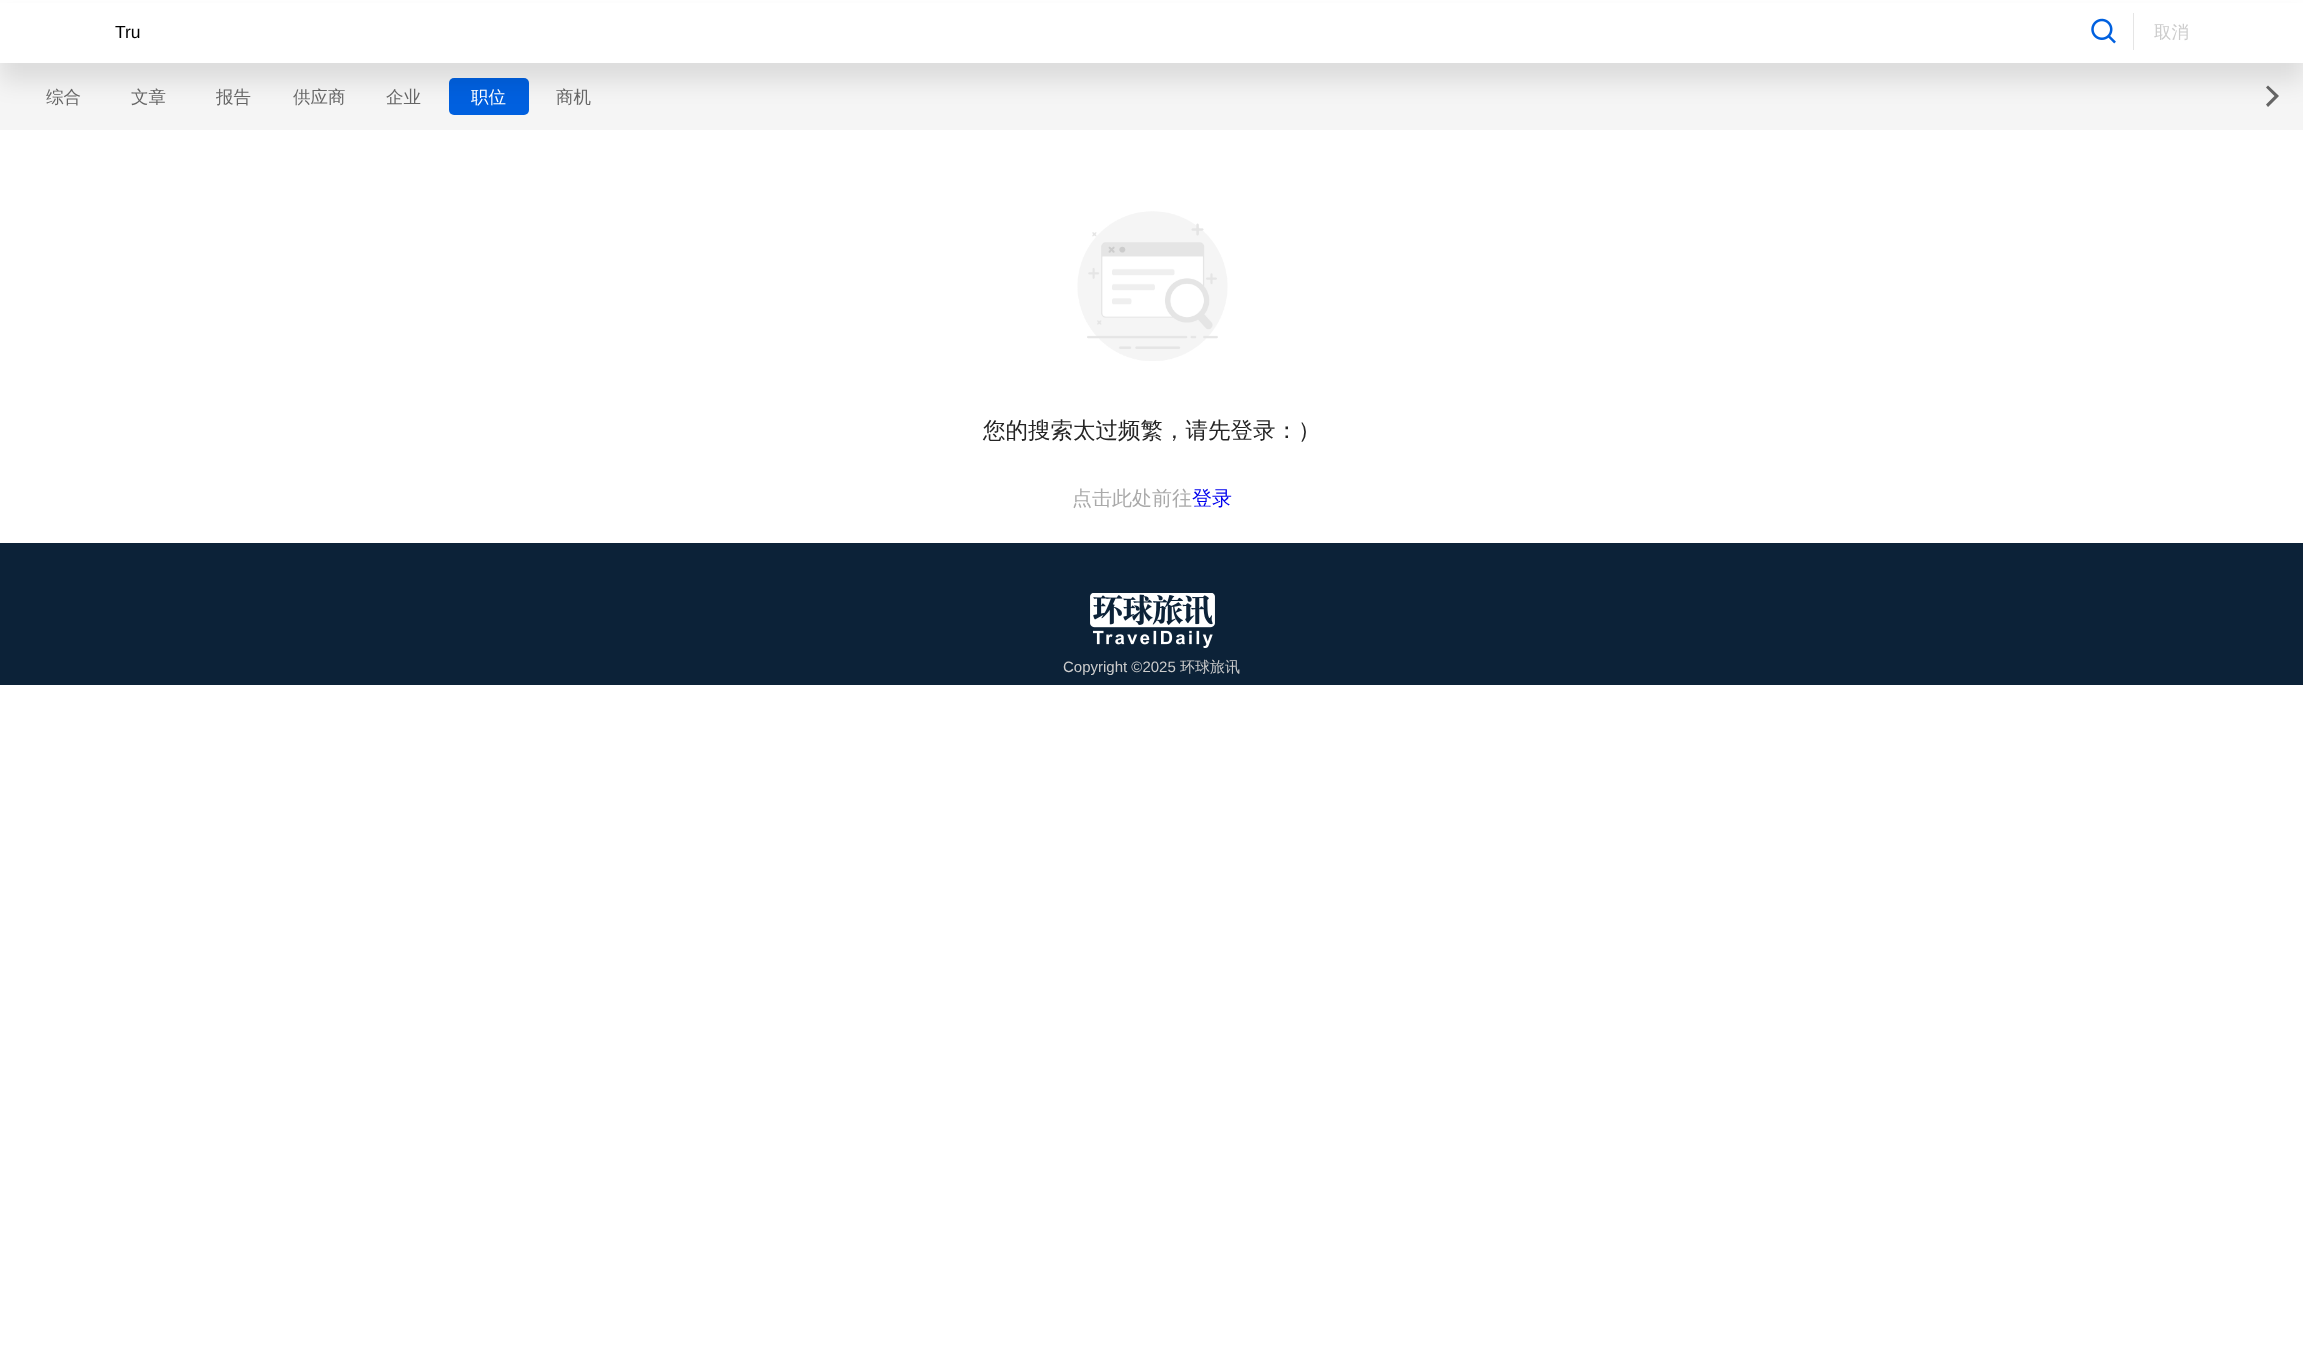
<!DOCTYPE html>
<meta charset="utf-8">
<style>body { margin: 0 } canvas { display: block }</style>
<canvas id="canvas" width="2303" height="1372"></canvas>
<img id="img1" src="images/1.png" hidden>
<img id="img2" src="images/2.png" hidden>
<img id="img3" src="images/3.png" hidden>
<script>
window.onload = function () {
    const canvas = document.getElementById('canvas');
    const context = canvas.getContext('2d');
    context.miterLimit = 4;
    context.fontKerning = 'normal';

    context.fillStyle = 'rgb(255, 255, 255)';
    context.fillRect(0, 0, 2303, 1372);
    context.fillStyle = 'rgb(245, 245, 245)';
    context.fillRect(0, 63, 2303, 67);
    context.fillStyle = 'rgb(0, 96, 223)';
    context.beginPath();
    context.roundRect(449, 78, 80, 37, 5);
    context.fill();
    context.fillStyle = 'rgb(102, 102, 102)';
    context.beginPath();
    context.moveTo(2277, 94);
    context.lineTo(2279, 96);
    context.lineTo(2268, 107);
    context.lineTo(2266, 104.5);
    context.lineTo(2274.5, 96);
    context.lineTo(2266, 87.5);
    context.lineTo(2268, 85.5);
    context.closePath();
    context.fill();
    context.fillStyle = 'rgba(0, 0, 0, 0.1)';
    context.filter = 'blur(12.5px)';
    context.beginPath();
    context.rect(0, 19, 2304, 62);
    context.fill();
    context.filter = 'none';
    context.fillStyle = 'rgb(255, 255, 255)';
    context.fillRect(0, 3, 2303, 60);
    context.drawImage(document.getElementById('img1'), 2091, 18, 25, 26);
    context.fillStyle = 'rgb(229, 229, 229)';
    context.fillRect(2133, 13, 1, 37);
    context.drawImage(document.getElementById('img2'), 1077, 211, 151, 150);
    context.fillStyle = 'rgb(12, 34, 56)';
    context.fillRect(0, 543, 2303, 142);
    context.drawImage(document.getElementById('img3'), 1090, 593, 125, 55);
    context.font = '17.5px Liberation Sans';
    context.fillStyle = 'rgb(0, 0, 0)';
    context.fillText('Tru', 115, 38);
    context.font = '500 17.5px WenQuanYi Zen Hei';
    context.fillStyle = 'rgb(204, 204, 204)';
    context.fillText('取消', 2154, 38);
    context.fillStyle = 'rgb(102, 102, 102)';
    context.fillText('综合', 46, 103);
    context.fillText('文章', 131, 103);
    context.fillText('报告', 216, 103);
    context.fillText('供应商', 293, 103);
    context.fillText('企业', 386, 103);
    context.fillStyle = 'rgb(255, 255, 255)';
    context.fillText('职位', 471, 103);
    context.fillStyle = 'rgb(102, 102, 102)';
    context.fillText('商机', 556, 103);
    context.font = '500 22.5px WenQuanYi Zen Hei';
    context.fillStyle = 'rgb(37, 37, 37)';
    context.fillText('您的搜索太过频繁，请先登录：）', 983, 438);
    context.font = '500 20px WenQuanYi Zen Hei';
    context.fillStyle = 'rgb(170, 170, 170)';
    context.fillText('点击此处前往', 1072, 505);
    context.fillStyle = 'rgb(0, 0, 238)';
    context.fillText('登录', 1192, 505);
    context.font = '15px Liberation Sans';
    context.fillStyle = 'rgb(204, 204, 204)';
    context.fillText('Copyright ©2025', 1063, 672);
    context.font = '500 15px WenQuanYi Zen Hei';
    context.fillText('环球旅讯', 1180, 672);
};
</script>
